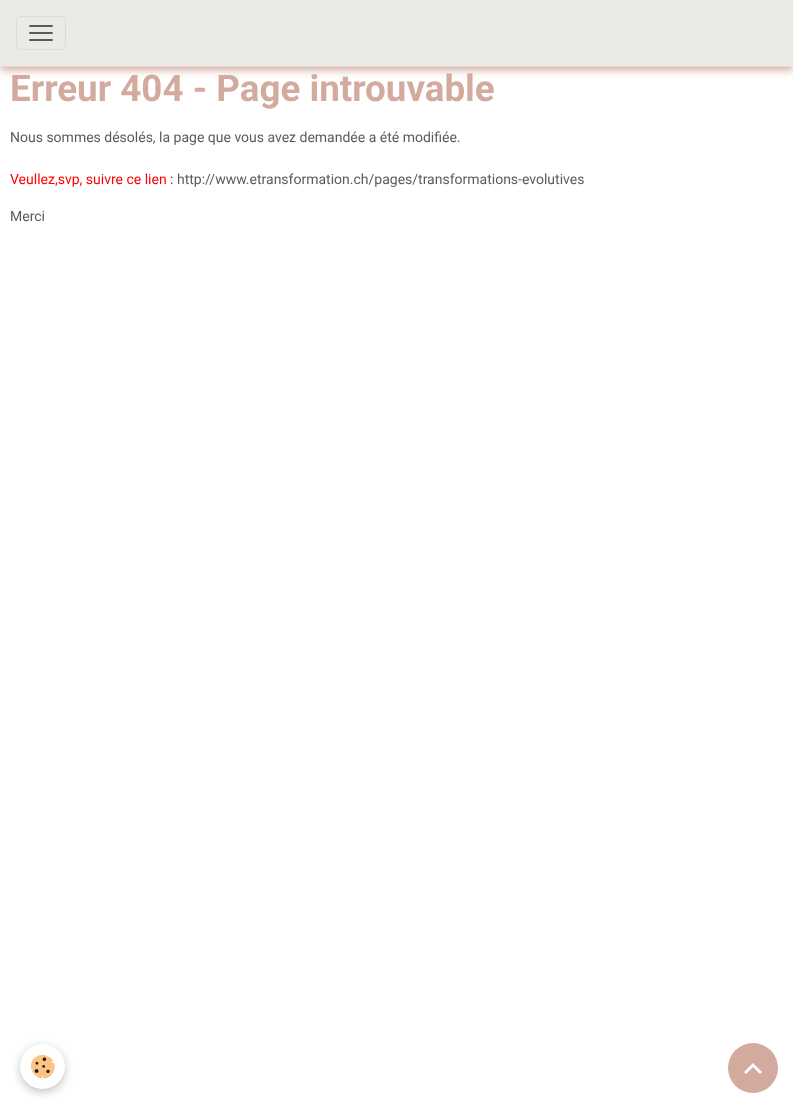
<!DOCTYPE html>
<meta charset="utf-8">
<style>body { margin: 0 } canvas { display: block }</style>
<canvas id="canvas" width="793" height="1108"></canvas>
<img id="img1" src="images/1.png" hidden>
<script>
window.onload = function () {
    const canvas = document.getElementById('canvas');
    const context = canvas.getContext('2d');
    context.miterLimit = 4;
    context.fontKerning = 'normal';

    context.fillStyle = 'rgb(255, 255, 255)';
    context.fillRect(0, 0, 793, 1108);
    context.fillStyle = 'rgb(211, 171, 158)';
    context.filter = 'blur(4px)';
    context.beginPath();
    context.rect(0, 3, 793, 67);
    context.fill();
    context.filter = 'none';
    context.fillStyle = 'rgb(236, 234, 230)';
    context.fillRect(0, 0, 793, 66);
    context.fillStyle = 'rgb(235, 216, 208)';
    context.fillRect(0, 66, 793, 1);
    context.beginPath();
    context.roundRect(16.5, 16.5, 49, 33, 3.5);
    context.strokeStyle = 'rgb(222, 220, 216)';
    context.stroke();
    context.fillStyle = 'rgb(91, 91, 91)';
    context.beginPath();
    context.roundRect(29, 25, 24, 2, 1);
    context.fill();
    context.beginPath();
    context.roundRect(29, 32, 24, 2, 1);
    context.fill();
    context.beginPath();
    context.roundRect(29, 39, 24, 2, 1);
    context.fill();
    context.fillStyle = 'rgba(0, 0, 0, 0.24)';
    context.filter = 'blur(5px)';
    context.beginPath();
    context.roundRect(20, 1047, 45, 45, 22.5);
    context.fill();
    context.filter = 'none';
    context.fillStyle = 'rgb(255, 255, 255)';
    context.beginPath();
    context.arc(42.5, 1066.5, 22.5, 0, 2 * Math.PI);
    context.fill();
    context.drawImage(document.getElementById('img1'), 30, 1054, 25, 25);
    context.fillStyle = 'rgb(211, 171, 158)';
    context.beginPath();
    context.arc(753, 1068, 25, 0, 2 * Math.PI);
    context.fill();
    context.fillStyle = 'rgb(255, 255, 255)';
    context.beginPath();
    context.moveTo(753, 1063);
    context.lineTo(762, 1072);
    context.lineTo(760, 1074);
    context.lineTo(753, 1067);
    context.lineTo(746, 1074);
    context.lineTo(744, 1072);
    context.closePath();
    context.fill();
    context.font = 'bold 36.75px Roboto';
    context.fillStyle = 'rgb(211, 171, 158)';
    context.fillText('Erreur 404 - Page introuvable', 10, 101);
    context.font = '14px Roboto';
    context.fillStyle = 'rgb(91, 91, 91)';
    context.fillText('Nous sommes désolés, la page que vous avez demandée a été modifiée.', 10, 142);
    context.fillStyle = 'rgb(255, 0, 0)';
    context.fillText('Veullez,svp, suivre ce lien :', 10, 184);
    context.fillStyle = 'rgb(91, 91, 91)';
    context.fillText('http://www.etransformation.ch/pages/transformations-evolutives', 177, 184);
    context.fillText('Merci', 10, 221);
};
</script>
